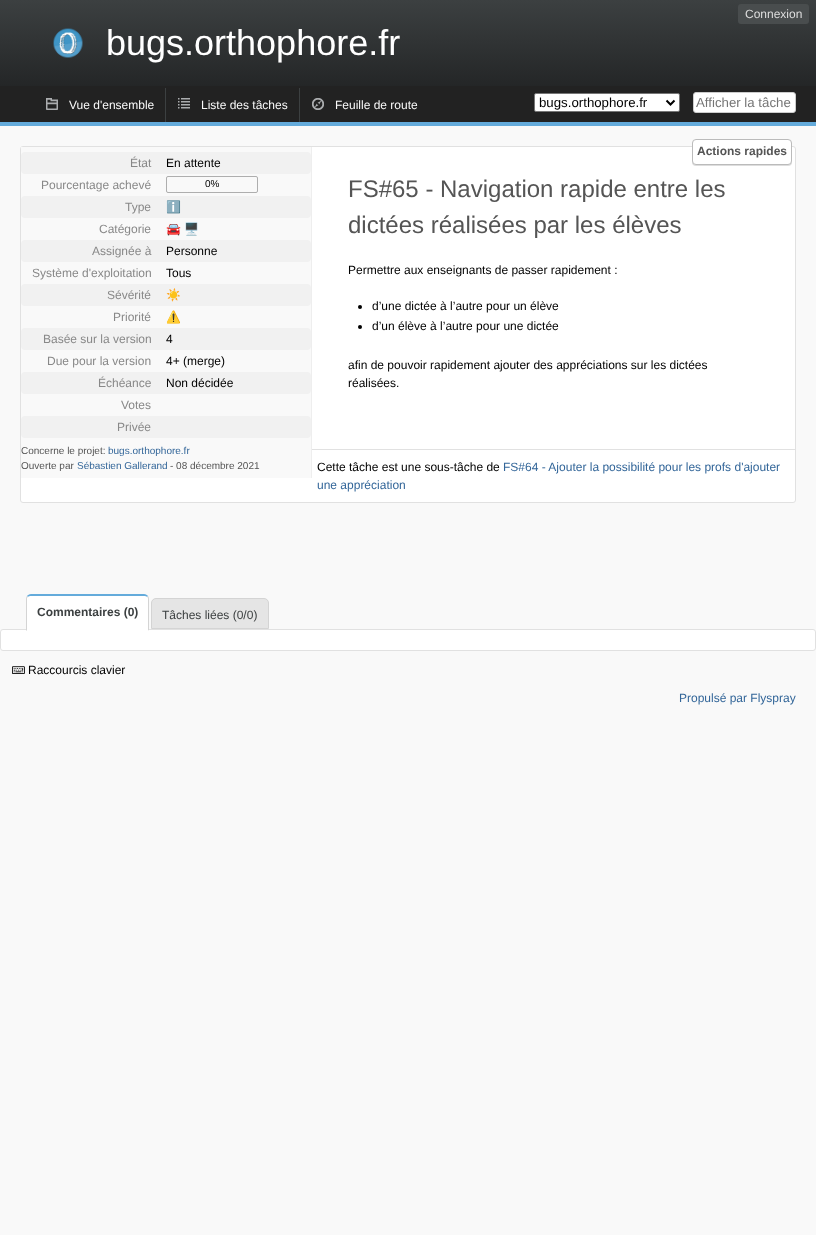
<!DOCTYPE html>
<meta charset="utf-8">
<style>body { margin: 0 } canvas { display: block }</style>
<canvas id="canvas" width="816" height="1235"></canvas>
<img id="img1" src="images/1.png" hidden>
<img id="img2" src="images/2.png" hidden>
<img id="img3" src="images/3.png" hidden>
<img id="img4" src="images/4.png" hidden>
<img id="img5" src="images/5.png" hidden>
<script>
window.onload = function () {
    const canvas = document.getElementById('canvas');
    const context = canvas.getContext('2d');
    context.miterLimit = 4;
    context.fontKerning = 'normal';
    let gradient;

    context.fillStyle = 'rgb(249, 249, 249)';
    context.fillRect(0, 0, 816, 1235);
    gradient = context.createLinearGradient(408, 0, 408, 86);
    gradient.addColorStop(0, 'rgb(60, 64, 65)');
    gradient.addColorStop(1, 'rgb(36, 38, 39)');
    context.fillStyle = gradient;
    context.fillRect(0, 0, 816, 86);
    context.fillStyle = 'rgb(73, 77, 78)';
    context.beginPath();
    context.roundRect(738, 4, 71, 20, 3);
    context.fill();
    context.drawImage(document.getElementById('img1'), 53, 28, 30, 30);
    context.fillStyle = 'rgb(34, 34, 34)';
    context.fillRect(0, 86, 816, 36);
    context.fillStyle = 'rgb(100, 171, 219)';
    context.fillRect(0, 122, 816, 4);
    context.drawImage(document.getElementById('img2'), 46, 98, 12, 12);
    context.drawImage(document.getElementById('img3'), 178, 98, 12, 11);
    context.fillStyle = 'rgb(60, 64, 65)';
    context.fillRect(165, 88, 1, 34);
    context.drawImage(document.getElementById('img4'), 312, 98, 12, 12);
    context.fillRect(299, 88, 1, 34);
    context.fillStyle = 'rgb(255, 255, 255)';
    context.beginPath();
    context.roundRect(534.5, 93.5, 145, 18, 1.5);
    context.fill();
    context.strokeStyle = 'rgb(118, 118, 118)';
    context.stroke();
    context.beginPath();
    context.moveTo(666.5, 100.5);
    context.lineTo(670.5, 104.5);
    context.lineTo(674.5, 100.5);
    context.strokeStyle = 'rgb(0, 0, 0)';
    context.lineWidth = 2;
    context.stroke();
    context.beginPath();
    context.roundRect(693.5, 92.5, 102, 20, 2.5);
    context.fill();
    context.strokeStyle = 'rgb(204, 204, 204)';
    context.lineWidth = 1;
    context.stroke();
    context.beginPath();
    context.roundRect(20.5, 146.5, 775, 356, 2.5);
    context.fill();
    context.strokeStyle = 'rgb(225, 225, 225)';
    context.stroke();
    context.fillStyle = 'rgb(221, 221, 221)';
    context.filter = 'blur(0.5px)';
    context.beginPath();
    context.roundRect(692, 140, 100, 26, 4);
    context.fill();
    context.filter = 'none';
    context.fillStyle = 'rgb(255, 255, 255)';
    context.beginPath();
    context.roundRect(692.5, 139.5, 99, 25, 3.5);
    context.fill();
    context.strokeStyle = 'rgb(187, 187, 187)';
    context.stroke();
    context.fillStyle = 'rgb(249, 249, 249)';
    context.fillRect(21, 147, 290, 331);
    context.fillStyle = 'rgb(238, 238, 238)';
    context.fillRect(311, 147, 1, 331);
    context.fillStyle = 'rgb(241, 241, 241)';
    context.beginPath();
    context.roundRect(21, 152, 290, 22, 4);
    context.fill();
    context.beginPath();
    context.roundRect(166.5, 176.5, 91, 16, 1.5);
    context.strokeStyle = 'rgb(174, 174, 174)';
    context.stroke();
    context.beginPath();
    context.roundRect(21, 196, 290, 22, 4);
    context.fill();
    context.beginPath();
    context.roundRect(21, 240, 290, 22, 4);
    context.fill();
    context.beginPath();
    context.roundRect(21, 284, 290, 22, 4);
    context.fill();
    context.beginPath();
    context.roundRect(21, 328, 290, 22, 4);
    context.fill();
    context.beginPath();
    context.roundRect(21, 372, 290, 22, 4);
    context.fill();
    context.beginPath();
    context.roundRect(21, 416, 290, 22, 4);
    context.fill();
    context.fillStyle = 'rgb(0, 0, 0)';
    context.beginPath();
    context.arc(360, 307, 2, 0, 2 * Math.PI);
    context.fill();
    context.beginPath();
    context.arc(360, 327, 2, 0, 2 * Math.PI);
    context.fill();
    context.fillStyle = 'rgb(225, 225, 225)';
    context.fillRect(312, 449, 483, 1);
    context.fillStyle = 'rgb(255, 255, 255)';
    context.beginPath();
    context.roundRect(0.5, 629.5, 815, 21, 2.5);
    context.fill();
    context.strokeStyle = 'rgb(225, 225, 225)';
    context.stroke();
    context.beginPath();
    context.moveTo(31, 596);
    context.lineTo(144, 596);
    context.bezierCurveTo(146, 596, 148, 597, 148, 599);
    context.lineTo(148, 630);
    context.lineTo(27, 630);
    context.lineTo(27, 599);
    context.bezierCurveTo(27, 597, 29, 596, 31, 596);
    context.closePath();
    context.fill();
    context.fillStyle = 'rgb(100, 171, 219)';
    context.beginPath();
    context.moveTo(31, 594);
    context.bezierCurveTo(29, 594, 28, 595, 27, 596);
    context.lineTo(28, 597);
    context.bezierCurveTo(28, 596, 30, 596, 31, 596);
    context.lineTo(144, 596);
    context.bezierCurveTo(145, 596, 147, 596, 147, 597);
    context.lineTo(148, 596);
    context.bezierCurveTo(147, 595, 146, 594, 144, 594);
    context.closePath();
    context.fill();
    context.fillStyle = 'rgb(212, 212, 212)';
    context.beginPath();
    context.moveTo(149, 631);
    context.lineTo(149, 599);
    context.bezierCurveTo(149, 598, 148.5, 596.5, 148, 596);
    context.lineTo(147.5, 597.5);
    context.bezierCurveTo(148, 597.5, 148, 598.5, 148, 599);
    context.lineTo(148, 630);
    context.closePath();
    context.fill();
    context.fillStyle = 'rgb(255, 255, 255)';
    context.beginPath();
    context.moveTo(149, 631);
    context.lineTo(148, 630);
    context.lineTo(27, 630);
    context.lineTo(26, 631);
    context.closePath();
    context.fill();
    context.fillStyle = 'rgb(212, 212, 212)';
    context.beginPath();
    context.moveTo(26, 631);
    context.lineTo(27, 630);
    context.lineTo(27, 599);
    context.bezierCurveTo(27, 598.5, 27, 597.5, 27.5, 597.5);
    context.lineTo(27, 596);
    context.bezierCurveTo(26.5, 596.5, 26, 598, 26, 599);
    context.closePath();
    context.fill();
    context.fillStyle = 'rgb(229, 229, 229)';
    context.beginPath();
    context.roundRect(151.5, 598.5, 117, 30, [4.5, 4.5, 0, 0]);
    context.fill();
    context.strokeStyle = 'rgb(212, 212, 212)';
    context.stroke();
    context.drawImage(document.getElementById('img5'), 12, 666, 13, 8);
    context.font = '12px Liberation Sans';
    context.fillStyle = 'rgb(221, 221, 221)';
    context.fillText('Connexion', 745, 18);
    context.font = '36px Liberation Sans';
    context.fillStyle = 'rgb(255, 255, 255)';
    context.fillText('bugs.orthophore.fr', 106, 55);
    context.font = '12px Liberation Sans';
    context.fillStyle = 'rgb(249, 249, 249)';
    context.fillText('Vue d\'ensemble', 69, 109);
    context.fillText('Liste des tâches', 201, 109);
    context.fillText('Feuille de route', 335, 109);
    context.font = '13.25px Liberation Sans';
    context.fillStyle = 'rgb(0, 0, 0)';
    context.fillText('bugs.orthophore.fr', 539, 107);
    context.fillStyle = 'rgb(117, 117, 117)';
    context.fillText('Afficher la tâche', 696, 107);
    context.font = 'bold 12px Liberation Sans';
    context.fillStyle = 'rgb(85, 85, 85)';
    context.fillText('Actions rapides', 697, 155);
    context.font = '12px Liberation Sans';
    context.fillStyle = 'rgb(136, 136, 136)';
    context.fillText('État', 130, 167);
    context.fillStyle = 'rgb(0, 0, 0)';
    context.fillText('En attente', 166, 167);
    context.fillStyle = 'rgb(136, 136, 136)';
    context.fillText('Pourcentage achevé', 41, 189);
    context.font = '10px Liberation Sans';
    context.fillStyle = 'rgb(0, 0, 0)';
    context.fillText('0%', 205, 187);
    context.font = '12px Liberation Sans';
    context.fillStyle = 'rgb(136, 136, 136)';
    context.fillText('Type', 125, 211);
    context.font = '12px Noto Color Emoji';
    context.fillStyle = 'rgb(0, 0, 0)';
    context.fillText('ℹ️', 166, 211);
    context.font = '12px Liberation Sans';
    context.fillStyle = 'rgb(136, 136, 136)';
    context.fillText('Catégorie', 99, 233);
    context.font = '12px Noto Color Emoji';
    context.fillStyle = 'rgb(0, 0, 0)';
    context.fillText('🚘', 166, 233);
    context.fillText('🖥', 184, 233);
    context.font = '12px Liberation Sans';
    context.fillStyle = 'rgb(136, 136, 136)';
    context.fillText('Assignée à', 92, 255);
    context.fillStyle = 'rgb(0, 0, 0)';
    context.fillText('Personne', 166, 255);
    context.fillStyle = 'rgb(136, 136, 136)';
    context.fillText('Système d\'exploitation', 32, 277);
    context.fillStyle = 'rgb(0, 0, 0)';
    context.fillText('Tous', 166, 277);
    context.fillStyle = 'rgb(136, 136, 136)';
    context.fillText('Sévérité', 107, 299);
    context.font = '12px Noto Color Emoji';
    context.fillStyle = 'rgb(0, 0, 0)';
    context.fillText('☀️', 166, 299);
    context.font = '12px Liberation Sans';
    context.fillStyle = 'rgb(136, 136, 136)';
    context.fillText('Priorité', 113, 321);
    context.font = '12px Noto Color Emoji';
    context.fillStyle = 'rgb(0, 0, 0)';
    context.fillText('⚠️', 166, 321);
    context.font = '12px Liberation Sans';
    context.fillStyle = 'rgb(136, 136, 136)';
    context.fillText('Basée sur la version', 43, 343);
    context.fillStyle = 'rgb(0, 0, 0)';
    context.fillText('4', 166, 343);
    context.fillStyle = 'rgb(136, 136, 136)';
    context.fillText('Due pour la version', 47, 365);
    context.fillStyle = 'rgb(0, 0, 0)';
    context.fillText('4+ (merge)', 166, 365);
    context.fillStyle = 'rgb(136, 136, 136)';
    context.fillText('Échéance', 98, 387);
    context.fillStyle = 'rgb(0, 0, 0)';
    context.fillText('Non décidée', 166, 387);
    context.fillStyle = 'rgb(136, 136, 136)';
    context.fillText('Votes', 121, 409);
    context.fillText('Privée', 117, 431);
    context.font = '10px Liberation Sans';
    context.fillStyle = 'rgb(85, 85, 85)';
    context.fillText('Concerne le projet:', 21, 454);
    context.fillStyle = 'rgb(51, 102, 153)';
    context.fillText('bugs.orthophore.fr', 108, 454);
    context.fillStyle = 'rgb(85, 85, 85)';
    context.fillText('Ouverte par', 21, 469);
    context.fillStyle = 'rgb(51, 102, 153)';
    context.fillText('Sébastien Gallerand', 77, 469);
    context.fillStyle = 'rgb(85, 85, 85)';
    context.fillText('- 08 décembre 2021', 170, 469);
    context.font = '24px Liberation Sans';
    context.fillText('FS#65 - Navigation rapide entre les', 348, 197);
    context.fillText('dictées réalisées par les élèves', 348, 233);
    context.font = '12px Liberation Sans';
    context.fillStyle = 'rgb(0, 0, 0)';
    context.fillText('Permettre aux enseignants de passer rapidement :', 348, 274);
    context.fillText('d’une dictée à l’autre pour un élève', 372, 310);
    context.fillText('d’un élève à l’autre pour une dictée', 372, 330);
    context.fillText('afin de pouvoir rapidement ajouter des appréciations sur les dictées', 348, 369);
    context.fillText('réalisées.', 348, 387);
    context.fillText('Cette tâche est une sous-tâche de', 317, 471);
    context.fillStyle = 'rgb(51, 102, 153)';
    context.fillText('FS#64 - Ajouter la possibilité pour les profs d\'ajouter', 503, 471);
    context.fillText('une appréciation', 317, 489);
    context.font = 'bold 12px Liberation Sans';
    context.fillStyle = 'rgb(60, 64, 65)';
    context.fillText('Commentaires (0)', 37, 616);
    context.font = '12px Liberation Sans';
    context.fillText('Tâches liées (0/0)', 162, 619);
    context.fillStyle = 'rgb(0, 0, 0)';
    context.fillText('Raccourcis clavier', 28, 674);
    context.fillStyle = 'rgb(51, 102, 153)';
    context.fillText('Propulsé par Flyspray', 679, 702);
};
</script>
